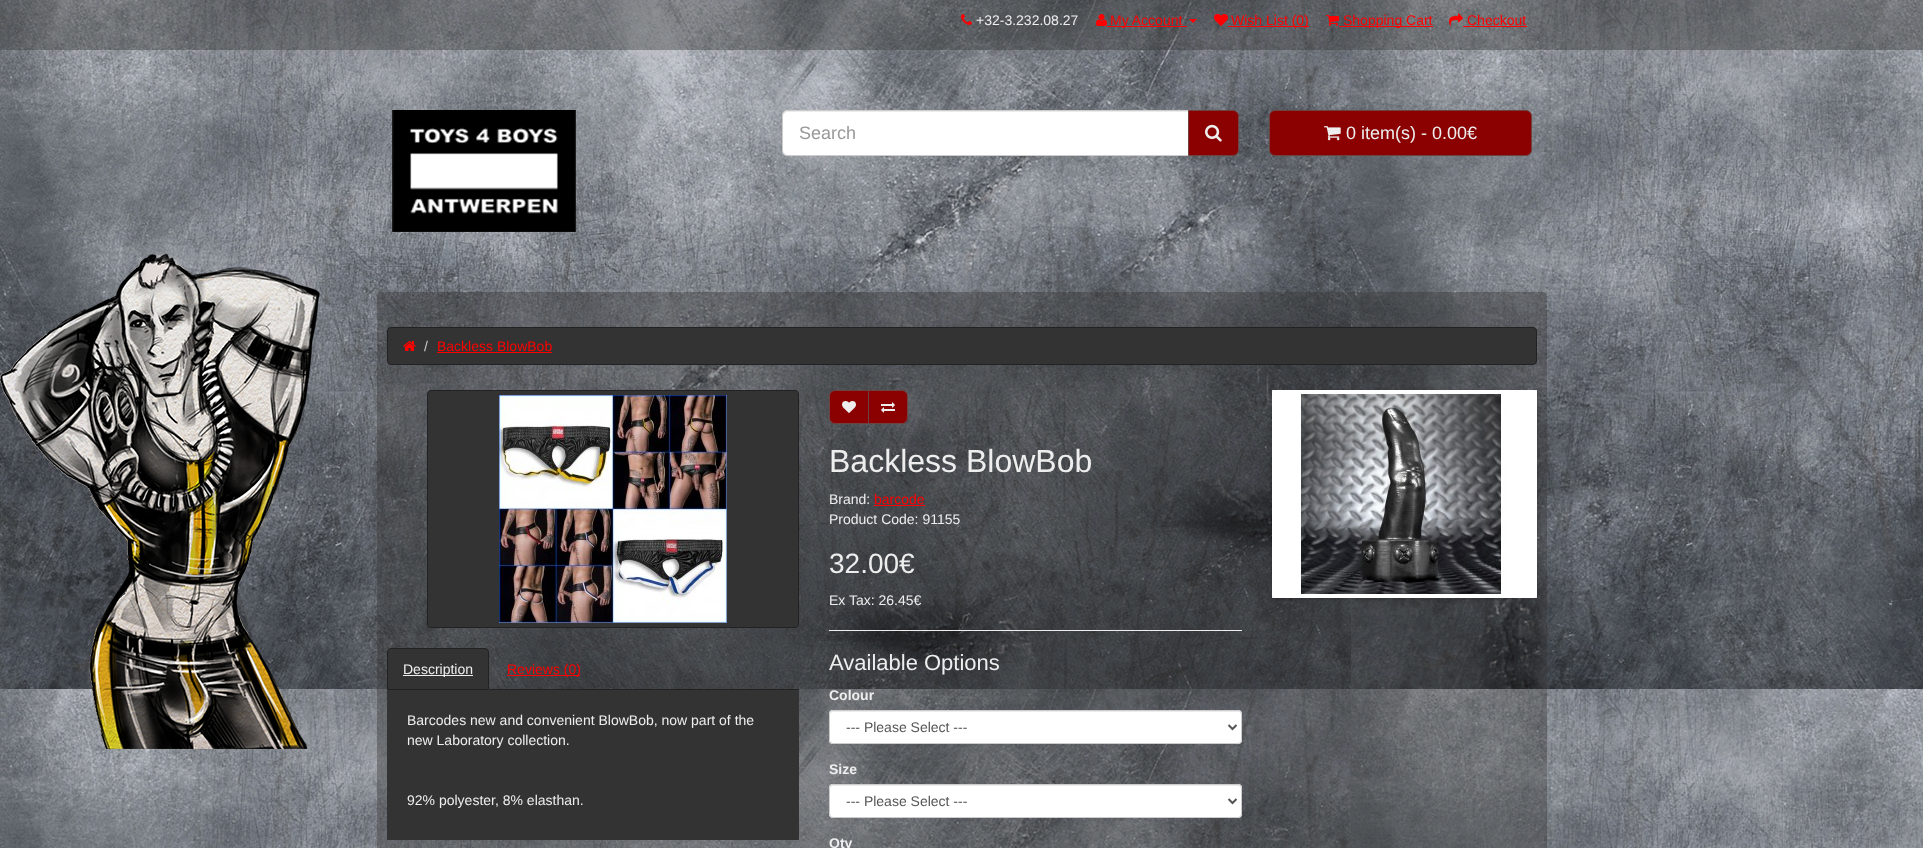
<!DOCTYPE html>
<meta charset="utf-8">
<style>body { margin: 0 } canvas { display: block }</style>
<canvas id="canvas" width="1923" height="848"></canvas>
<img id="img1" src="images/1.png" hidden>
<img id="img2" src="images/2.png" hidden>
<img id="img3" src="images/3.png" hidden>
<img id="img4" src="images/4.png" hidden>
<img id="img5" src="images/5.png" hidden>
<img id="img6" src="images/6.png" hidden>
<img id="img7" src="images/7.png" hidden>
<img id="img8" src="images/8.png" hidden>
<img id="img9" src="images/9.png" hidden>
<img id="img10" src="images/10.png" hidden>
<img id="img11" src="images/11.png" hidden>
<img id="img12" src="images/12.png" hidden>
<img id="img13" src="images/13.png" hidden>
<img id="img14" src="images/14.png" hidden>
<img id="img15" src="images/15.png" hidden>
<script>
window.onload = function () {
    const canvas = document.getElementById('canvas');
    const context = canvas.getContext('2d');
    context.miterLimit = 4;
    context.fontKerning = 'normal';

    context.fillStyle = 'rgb(255, 255, 255)';
    context.fillRect(0, 0, 1923, 848);
    context.drawImage(document.getElementById('img1'), 0, 0, 1923, 848);
    context.fillStyle = 'rgba(55, 55, 55, 0.4)';
    context.fillRect(0, 0, 1923, 50);
    context.drawImage(document.getElementById('img2'), 961, 14, 11, 11);
    context.drawImage(document.getElementById('img3'), 1096, 14, 11, 12);
    context.fillStyle = 'rgb(255, 0, 0)';
    context.beginPath();
    context.moveTo(1189, 19);
    context.lineTo(1197, 19);
    context.lineTo(1193, 23);
    context.closePath();
    context.fill();
    context.fillRect(1107, 26, 80, 1);
    context.drawImage(document.getElementById('img4'), 1214, 14, 14, 12);
    context.fillRect(1228, 26, 81, 1);
    context.drawImage(document.getElementById('img5'), 1326, 15, 13, 11);
    context.fillRect(1339, 26, 94, 1);
    context.drawImage(document.getElementById('img6'), 1449, 13, 14, 13);
    context.fillRect(1463, 26, 64, 1);
    context.drawImage(document.getElementById('img7'), 0, 252, 320, 497);
    context.drawImage(document.getElementById('img8'), 392, 110, 184, 122);
    context.fillStyle = 'rgb(255, 255, 255)';
    context.beginPath();
    context.roundRect(782, 110, 407, 46, [6, 0, 0, 6]);
    context.fill();
    context.fillStyle = 'rgb(236, 236, 236)';
    context.beginPath();
    context.moveTo(788, 112);
    context.lineTo(1188, 112);
    context.lineTo(1188, 111);
    context.lineTo(788, 111);
    context.bezierCurveTo(785, 111, 783, 114, 783, 117);
    context.bezierCurveTo(783, 114, 785, 112, 788, 112);
    context.closePath();
    context.fill();
    context.beginPath();
    context.roundRect(782.5, 110.5, 406, 45, [5.5, 0, 0, 5.5]);
    context.strokeStyle = 'rgb(204, 204, 204)';
    context.stroke();
    context.fillStyle = 'rgb(139, 0, 0)';
    context.beginPath();
    context.roundRect(1188.5, 110.5, 50, 45, [0, 5.5, 5.5, 0]);
    context.fill();
    context.strokeStyle = 'rgb(111, 66, 66)';
    context.stroke();
    context.drawImage(document.getElementById('img9'), 1205, 124, 17, 18);
    context.beginPath();
    context.roundRect(1269.5, 110.5, 262, 45, 5.5);
    context.fill();
    context.stroke();
    context.drawImage(document.getElementById('img10'), 1324, 126, 17, 15);
    context.fillStyle = 'rgba(55, 55, 55, 0.4)';
    context.beginPath();
    context.roundRect(377, 292, 1170, 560, 4);
    context.fill();
    context.fillStyle = 'rgb(51, 51, 51)';
    context.beginPath();
    context.roundRect(387.5, 327.5, 1149, 37, 3.5);
    context.fill();
    context.strokeStyle = 'rgb(34, 34, 34)';
    context.stroke();
    context.drawImage(document.getElementById('img11'), 403, 341, 13, 10);
    context.fillStyle = 'rgb(255, 0, 0)';
    context.fillRect(437, 352, 115, 1);
    context.fillStyle = 'rgb(51, 51, 51)';
    context.beginPath();
    context.roundRect(427.5, 390.5, 371, 237, 3.5);
    context.fill();
    context.stroke();
    context.drawImage(document.getElementById('img12'), 499, 395, 228, 228);
    context.fillStyle = 'rgb(34, 34, 34)';
    context.fillRect(489, 689, 310, 1);
    context.fillStyle = 'rgb(51, 51, 51)';
    context.beginPath();
    context.roundRect(387.5, 648.5, 101, 41, [3.5, 3.5, 0, 0]);
    context.fill();
    context.stroke();
    context.fillStyle = 'rgb(238, 238, 238)';
    context.fillRect(403, 675, 70, 1);
    context.fillStyle = 'rgb(255, 0, 0)';
    context.fillRect(507, 675, 73, 1);
    context.fillStyle = 'rgb(51, 51, 51)';
    context.fillRect(387, 690, 412, 150);
    context.fillStyle = 'rgb(139, 0, 0)';
    context.beginPath();
    context.roundRect(829.5, 390.5, 39, 33, [5.5, 0, 0, 5.5]);
    context.fill();
    context.strokeStyle = 'rgb(111, 66, 66)';
    context.stroke();
    context.drawImage(document.getElementById('img13'), 842, 401, 14, 12);
    context.beginPath();
    context.roundRect(868.5, 390.5, 39, 33, [0, 5.5, 5.5, 0]);
    context.fill();
    context.stroke();
    context.drawImage(document.getElementById('img14'), 881, 402, 14, 11);
    context.fillStyle = 'rgb(255, 0, 0)';
    context.fillRect(874, 505, 51, 1);
    context.fillStyle = 'rgb(238, 238, 238)';
    context.fillRect(829, 630, 413, 1);
    context.fillStyle = 'rgb(255, 255, 255)';
    context.beginPath();
    context.roundRect(829, 710, 413, 34, 4);
    context.fill();
    context.fillStyle = 'rgb(236, 236, 236)';
    context.beginPath();
    context.moveTo(833, 712);
    context.lineTo(1238, 712);
    context.bezierCurveTo(1240, 712, 1241, 713, 1241, 715);
    context.bezierCurveTo(1241, 713, 1240, 711, 1238, 711);
    context.lineTo(833, 711);
    context.bezierCurveTo(831, 711, 830, 713, 830, 715);
    context.bezierCurveTo(830, 713, 831, 712, 833, 712);
    context.closePath();
    context.fill();
    context.beginPath();
    context.roundRect(829.5, 710.5, 412, 33, 3.5);
    context.strokeStyle = 'rgb(204, 204, 204)';
    context.stroke();
    context.beginPath();
    context.moveTo(1228.5, 725);
    context.lineTo(1232.5, 729);
    context.lineTo(1236.5, 725);
    context.strokeStyle = 'rgb(85, 85, 85)';
    context.lineWidth = 2;
    context.stroke();
    context.fillStyle = 'rgb(255, 255, 255)';
    context.beginPath();
    context.roundRect(829, 784, 413, 34, 4);
    context.fill();
    context.fillStyle = 'rgb(236, 236, 236)';
    context.beginPath();
    context.moveTo(833, 786);
    context.lineTo(1238, 786);
    context.bezierCurveTo(1240, 786, 1241, 787, 1241, 789);
    context.bezierCurveTo(1241, 787, 1240, 785, 1238, 785);
    context.lineTo(833, 785);
    context.bezierCurveTo(831, 785, 830, 787, 830, 789);
    context.bezierCurveTo(830, 787, 831, 786, 833, 786);
    context.closePath();
    context.fill();
    context.beginPath();
    context.roundRect(829.5, 784.5, 412, 33, 3.5);
    context.strokeStyle = 'rgb(204, 204, 204)';
    context.lineWidth = 1;
    context.stroke();
    context.beginPath();
    context.moveTo(1228.5, 799);
    context.lineTo(1232.5, 803);
    context.lineTo(1236.5, 799);
    context.strokeStyle = 'rgb(85, 85, 85)';
    context.lineWidth = 2;
    context.stroke();
    context.fillStyle = 'rgb(255, 255, 255)';
    context.fillRect(1272, 390, 265, 208);
    context.save();
    context.beginPath();
    context.moveTo(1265, 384);
    context.lineTo(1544, 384);
    context.lineTo(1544, 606);
    context.lineTo(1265, 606);
    context.closePath();
    context.moveTo(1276, 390);
    context.lineTo(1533, 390);
    context.bezierCurveTo(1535, 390, 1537, 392, 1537, 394);
    context.lineTo(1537, 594);
    context.bezierCurveTo(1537, 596, 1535, 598, 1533, 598);
    context.lineTo(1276, 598);
    context.bezierCurveTo(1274, 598, 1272, 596, 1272, 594);
    context.lineTo(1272, 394);
    context.bezierCurveTo(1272, 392, 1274, 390, 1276, 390);
    context.closePath();
    context.clip('evenodd');
    context.fillStyle = 'rgba(0, 0, 0, 0.2)';
    context.filter = 'blur(2px)';
    context.beginPath();
    context.roundRect(1272, 391, 265, 208, 4);
    context.fill();
    context.filter = 'none';
    context.restore();
    context.beginPath();
    context.roundRect(1274, 392, 261, 204, 2);
    context.strokeStyle = 'rgb(255, 255, 255)';
    context.lineWidth = 4;
    context.stroke();
    context.drawImage(document.getElementById('img15'), 1300, 394, 208, 200);
    context.font = '14px Liberation Sans';
    context.fillStyle = 'rgb(238, 238, 238)';
    context.fillText('+32-3.232.08.27', 976, 25);
    context.fillStyle = 'rgb(255, 0, 0)';
    context.fillText('My Account', 1110, 25);
    context.fillText('Wish List (0)', 1231, 25);
    context.fillText('Shopping Cart', 1343, 25);
    context.fillText('Checkout', 1467, 25);
    context.font = '18px Liberation Sans';
    context.fillStyle = 'rgb(153, 153, 153)';
    context.fillText('Search', 799, 139);
    context.fillStyle = 'rgb(238, 238, 238)';
    context.fillText('0 item(s) - 0.00€', 1346, 139);
    context.font = '14px Liberation Sans';
    context.fillStyle = 'rgb(204, 204, 204)';
    context.fillText('/', 424, 351);
    context.fillStyle = 'rgb(255, 0, 0)';
    context.fillText('Backless BlowBob', 437, 351);
    context.fillStyle = 'rgb(238, 238, 238)';
    context.fillText('Description', 403, 674);
    context.fillStyle = 'rgb(255, 0, 0)';
    context.fillText('Reviews (0)', 507, 674);
    context.fillStyle = 'rgb(238, 238, 238)';
    context.fillText('Barcodes new and convenient BlowBob, now part of the', 407, 725);
    context.fillText('new Laboratory collection.', 407, 745);
    context.fillText('92% polyester, 8% elasthan.', 407, 805);
    context.font = '32px Liberation Sans';
    context.fillText('Backless BlowBob', 829, 472);
    context.font = '14px Liberation Sans';
    context.fillText('Brand:', 829, 504);
    context.fillStyle = 'rgb(255, 0, 0)';
    context.fillText('barcode', 874, 504);
    context.fillStyle = 'rgb(238, 238, 238)';
    context.fillText('Product Code: 91155', 829, 524);
    context.font = '28px Liberation Sans';
    context.fillText('32.00€', 829, 573);
    context.font = '14px Liberation Sans';
    context.fillText('Ex Tax: 26.45€', 829, 605);
    context.font = '22px Liberation Sans';
    context.fillText('Available Options', 829, 670);
    context.font = 'bold 14px Liberation Sans';
    context.fillText('Colour', 829, 700);
    context.font = '14px Liberation Sans';
    context.fillStyle = 'rgb(85, 85, 85)';
    context.fillText('--- Please Select ---', 846, 732);
    context.font = 'bold 14px Liberation Sans';
    context.fillStyle = 'rgb(238, 238, 238)';
    context.fillText('Size', 829, 774);
    context.font = '14px Liberation Sans';
    context.fillStyle = 'rgb(85, 85, 85)';
    context.fillText('--- Please Select ---', 846, 806);
    context.font = 'bold 14px Liberation Sans';
    context.fillStyle = 'rgb(238, 238, 238)';
    context.fillText('Qty', 829, 848);
};
</script>
